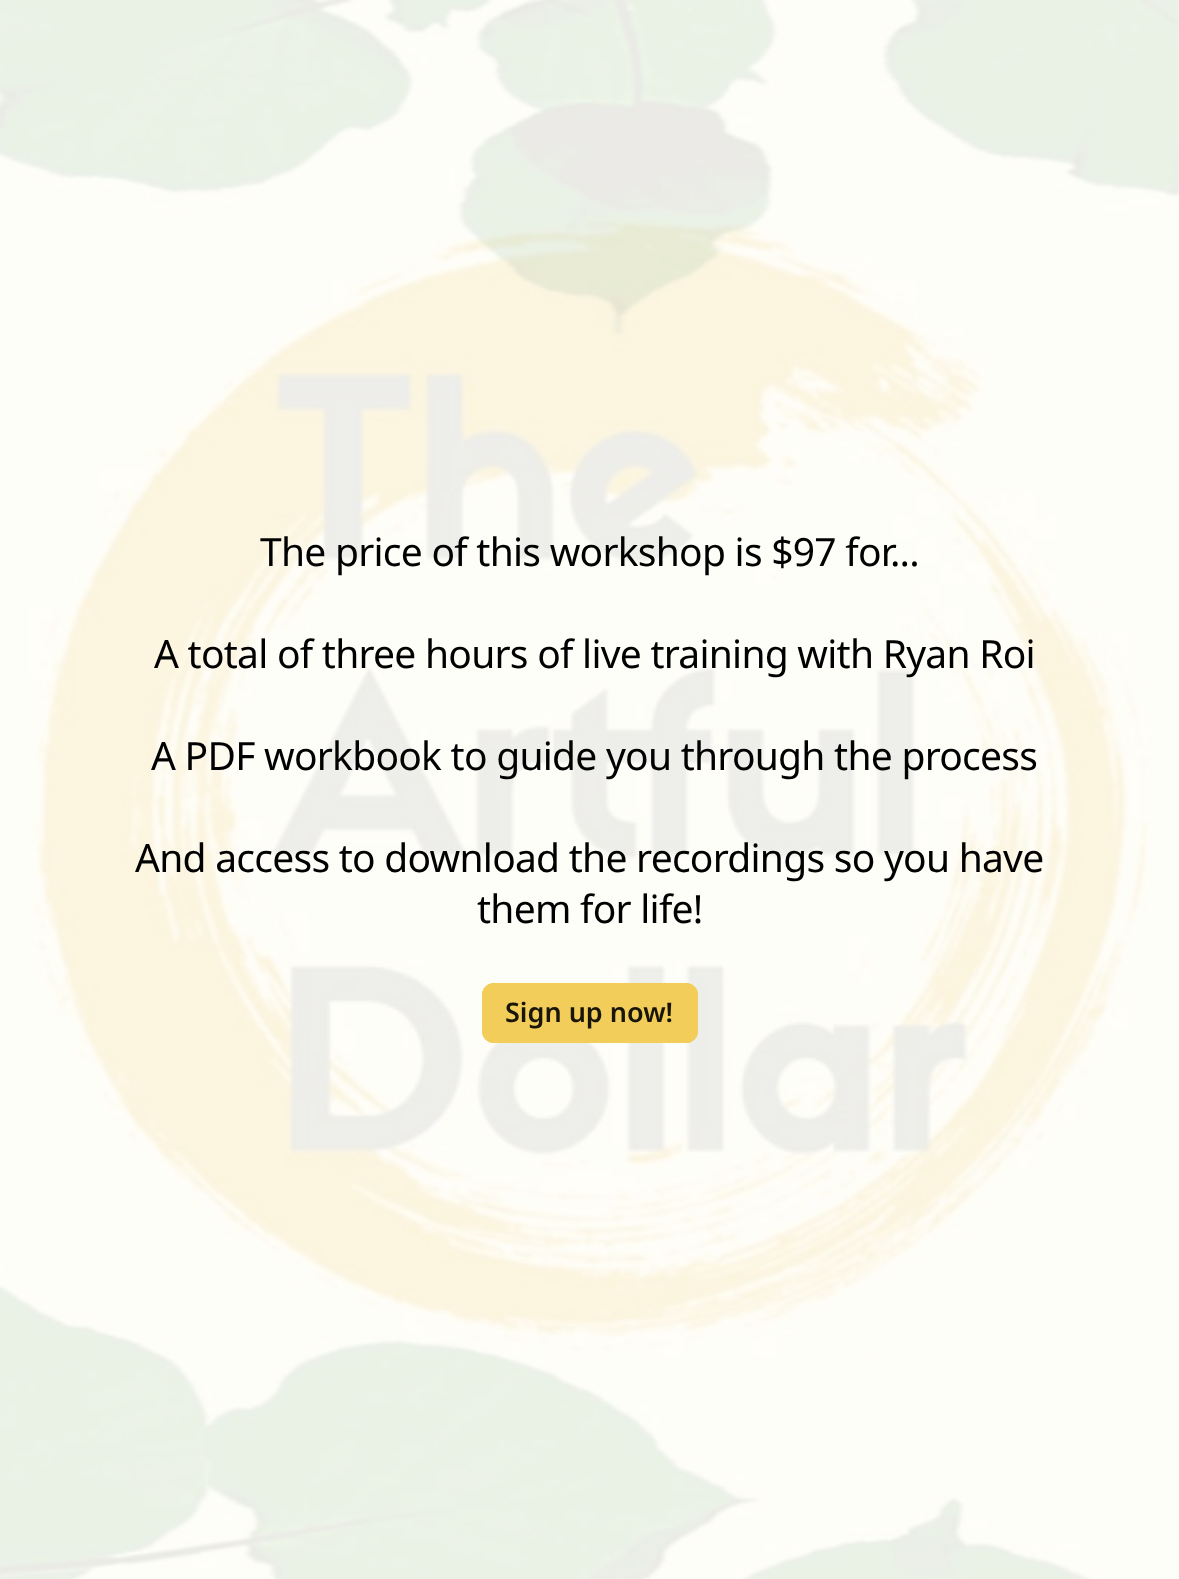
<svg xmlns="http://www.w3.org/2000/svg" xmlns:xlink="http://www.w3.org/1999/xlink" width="1179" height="1579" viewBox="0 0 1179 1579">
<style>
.cls-1{font:39px Noto Sans;letter-spacing:-0.75px;fill:#000000}
.cls-2{font:600 27px Noto Sans;fill:#181509}
</style>
<rect width="100%" height="100%" fill="#ffffff"/>
<image xlink:href="image0.png" x="0" y="0" width="1179" height="1579"/>
<rect fill="none" stroke="#f3cd59" stroke-width="2" x="483" y="984" width="214" height="58" rx="11"/>
<rect fill="#f3cd59" filter="blur(0.5px)" x="482" y="983" width="216" height="60" rx="12"/>
<text class="cls-1" x="260" y="566">The price of this workshop is $97 for...</text>
<text class="cls-1" x="154" y="668">A total of three hours of live training with Ryan Roi</text>
<text class="cls-1" x="151" y="770">A PDF workbook to guide you through the process</text>
<text class="cls-1" x="135" y="872">And access to download the recordings so you have</text>
<text class="cls-1" x="477" y="923">them for life!</text>
<text class="cls-2" x="505" y="1022">Sign up now!</text>
</svg>
